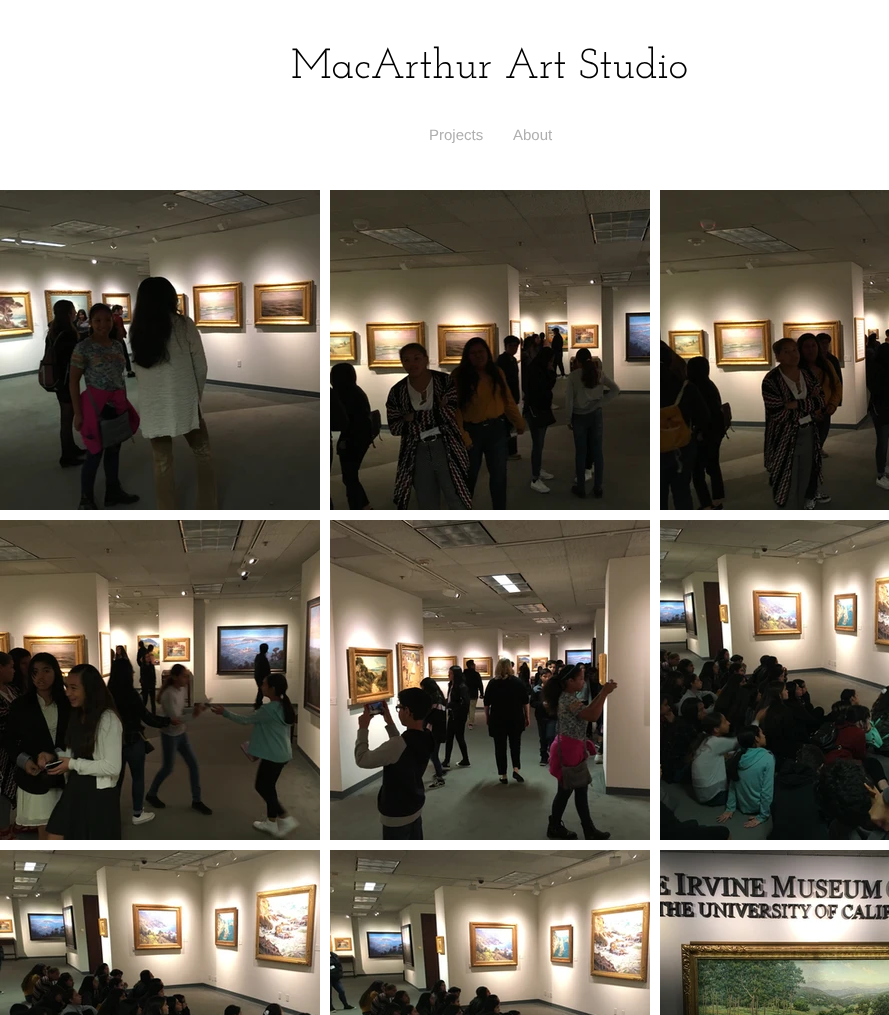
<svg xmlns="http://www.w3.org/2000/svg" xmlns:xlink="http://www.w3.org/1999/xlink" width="889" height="1015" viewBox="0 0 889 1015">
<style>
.cls-1{font:42px Josefin Slab;fill:#000000}
.cls-2{font:15px Liberation Sans;fill:#afafaf}
</style>
<rect width="100%" height="100%" fill="#ffffff"/>
<image xlink:href="image0.png" x="0" y="190" width="320" height="320"/>
<image xlink:href="image1.png" x="330" y="190" width="320" height="320"/>
<image xlink:href="image2.png" x="660" y="190" width="229" height="320"/>
<image xlink:href="image3.png" x="0" y="520" width="320" height="320"/>
<image xlink:href="image4.png" x="330" y="520" width="320" height="320"/>
<image xlink:href="image5.png" x="660" y="520" width="229" height="320"/>
<image xlink:href="image6.png" x="0" y="850" width="320" height="165"/>
<image xlink:href="image7.png" x="330" y="850" width="320" height="165"/>
<image xlink:href="image8.png" x="660" y="850" width="229" height="165"/>
<text class="cls-1" x="291" y="78">MacArthur Art Studio</text>
<text class="cls-2" x="429" y="140">Projects</text>
<text class="cls-2" x="513" y="140">About</text>
</svg>
